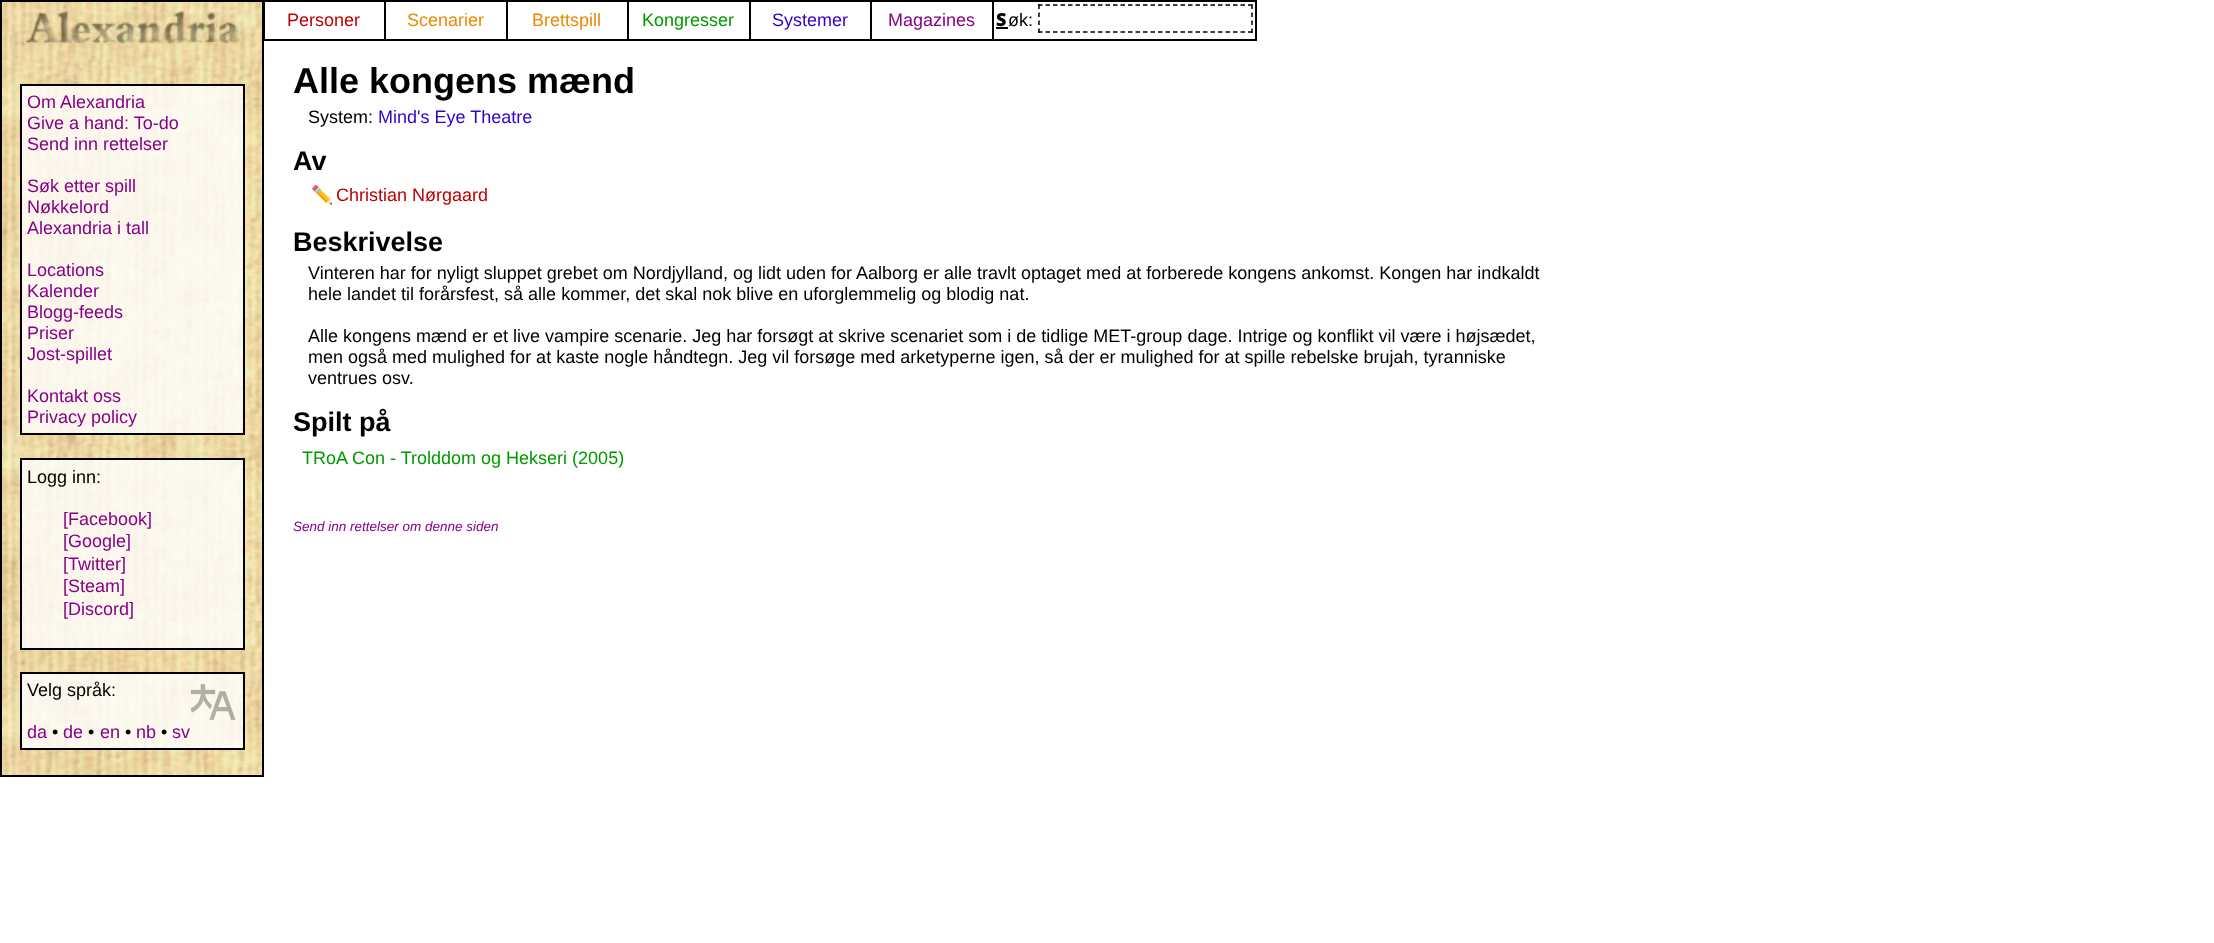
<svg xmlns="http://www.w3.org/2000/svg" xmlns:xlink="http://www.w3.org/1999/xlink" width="2214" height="943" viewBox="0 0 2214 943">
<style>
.cls-1{font:18px Liberation Sans;fill:#bb0000}
.cls-2{font:18px Liberation Sans;fill:#ee8800}
.cls-3{font:18px Liberation Sans;fill:#009900}
.cls-4{font:18px Liberation Sans;fill:#3300cc}
.cls-5{font:18px Liberation Sans;fill:#880088}
.cls-6{font:900 18px Noto Sans;fill:#000000}
.cls-7{font:18px Liberation Sans;fill:#000000}
.cls-8{font:bold 36px Liberation Sans;fill:#000000}
.cls-9{font:bold 27px Liberation Sans;fill:#000000}
.cls-10{font:18px Noto Color Emoji;fill:#000000}
.cls-11{font:italic 13.5px Liberation Sans;fill:#880088}
</style>
<rect width="100%" height="100%" fill="#ffffff"/>
<image xlink:href="image0.png" x="2" y="2" width="260" height="773"/>
<rect fill="none" stroke="#000000" stroke-width="2" x="1" y="1" width="262" height="775"/>
<rect fill="none" stroke="#000000" stroke-width="2" x="264" y="1" width="992" height="39"/>
<rect fill="#000000" x="384" y="2" width="2" height="37"/>
<rect fill="#000000" x="506" y="2" width="2" height="37"/>
<rect fill="#000000" x="627" y="2" width="2" height="37"/>
<rect fill="#000000" x="749" y="2" width="2" height="37"/>
<rect fill="#000000" x="870" y="2" width="2" height="37"/>
<rect fill="#000000" x="992" y="2" width="2" height="37"/>
<rect fill="#000000" x="996" y="27" width="12" height="2"/>
<path fill="none" stroke="#000000" stroke-width="1.5" stroke-dasharray="4.5 3" d="M1038 5H1252.5"/>
<path fill="none" stroke="#000000" stroke-width="1.5" stroke-dasharray="4.5 3.5" d="M1252 4.5V33"/>
<path fill="none" stroke="#000000" stroke-width="1.5" stroke-dasharray="4.5 3" d="M1038 32H1252.5"/>
<path fill="none" stroke="#000000" stroke-width="1.5" stroke-dasharray="4.5 3.5" d="M1039 4.5V33"/>
<image xlink:href="image1.png" x="23" y="10" width="223" height="38"/>
<rect fill="#ffffff" fill-opacity="0.8" stroke="#000000" stroke-width="2" x="21" y="85" width="223" height="349"/>
<rect fill="#ffffff" fill-opacity="0.8" stroke="#000000" stroke-width="2" x="21" y="459" width="223" height="190"/>
<rect fill="#ffffff" fill-opacity="0.8" stroke="#000000" stroke-width="2" x="21" y="673" width="223" height="76"/>
<image xlink:href="image2.png" x="191" y="684" width="45" height="36"/>
<text class="cls-1" x="287" y="26">Personer</text>
<text class="cls-2" x="407" y="26">Scenarier</text>
<text class="cls-2" x="532" y="26">Brettspill</text>
<text class="cls-3" x="642" y="26">Kongresser</text>
<text class="cls-4" x="772" y="26">Systemer</text>
<text class="cls-5" x="888" y="26">Magazines</text>
<text class="cls-6" x="996" y="26">S</text>
<text class="cls-7" x="1008" y="26">øk:</text>
<text class="cls-5"><tspan x="27" y="108">Om Alexandria</tspan><tspan x="27" y="129">Give a hand: To-do</tspan><tspan x="27" y="150">Send inn rettelser</tspan></text>
<text class="cls-5"><tspan x="27" y="192">Søk etter spill</tspan><tspan x="27" y="213">Nøkkelord</tspan><tspan x="27" y="234">Alexandria i tall</tspan></text>
<text class="cls-5"><tspan x="27" y="276">Locations</tspan><tspan x="27" y="297">Kalender</tspan><tspan x="27" y="318">Blogg-feeds</tspan><tspan x="27" y="339">Priser</tspan><tspan x="27" y="360">Jost-spillet</tspan></text>
<text class="cls-5"><tspan x="27" y="402">Kontakt oss</tspan><tspan x="27" y="423">Privacy policy</tspan></text>
<text class="cls-7" x="27" y="483">Logg inn:</text>
<text class="cls-5"><tspan x="63" y="525">[Facebook]</tspan><tspan x="63" y="547">[Google]</tspan><tspan x="63" y="570">[Twitter]</tspan><tspan x="63" y="592">[Steam]</tspan><tspan x="63" y="615">[Discord]</tspan></text>
<text class="cls-7" x="27" y="696">Velg språk:</text>
<text class="cls-5" x="27" y="738">da</text>
<text class="cls-7" x="52" y="738">•</text>
<text class="cls-5" x="63" y="738">de</text>
<text class="cls-7" x="88" y="738">•</text>
<text class="cls-5" x="100" y="738">en</text>
<text class="cls-7" x="125" y="738">•</text>
<text class="cls-5" x="136" y="738">nb</text>
<text class="cls-7" x="161" y="738">•</text>
<text class="cls-5" x="172" y="738">sv</text>
<text class="cls-8" x="293" y="93">Alle kongens mænd</text>
<text class="cls-7" x="308" y="123">System:</text>
<text class="cls-4" x="378" y="123">Mind's Eye Theatre</text>
<text class="cls-9" x="293" y="170">Av</text>
<text class="cls-10" x="311" y="201">✏️</text>
<text class="cls-1" x="336" y="201">Christian Nørgaard</text>
<text class="cls-9" x="293" y="251">Beskrivelse</text>
<text class="cls-7"><tspan x="308" y="279">Vinteren har for nyligt sluppet grebet om Nordjylland, og lidt uden for Aalborg er alle travlt optaget med at forberede kongens ankomst. Kongen har indkaldt</tspan><tspan x="308" y="300">hele landet til forårsfest, så alle kommer, det skal nok blive en uforglemmelig og blodig nat.</tspan></text>
<text class="cls-7"><tspan x="308" y="342">Alle kongens mænd er et live vampire scenarie. Jeg har forsøgt at skrive scenariet som i de tidlige MET-group dage. Intrige og konflikt vil være i højsædet,</tspan><tspan x="308" y="363">men også med mulighed for at kaste nogle håndtegn. Jeg vil forsøge med arketyperne igen, så der er mulighed for at spille rebelske brujah, tyranniske</tspan><tspan x="308" y="384">ventrues osv.</tspan></text>
<text class="cls-9" x="293" y="431">Spilt på</text>
<text class="cls-3" x="302" y="464">TRoA Con - Trolddom og Hekseri (2005)</text>
<text class="cls-11" x="293" y="531">Send inn rettelser om denne siden</text>
</svg>
